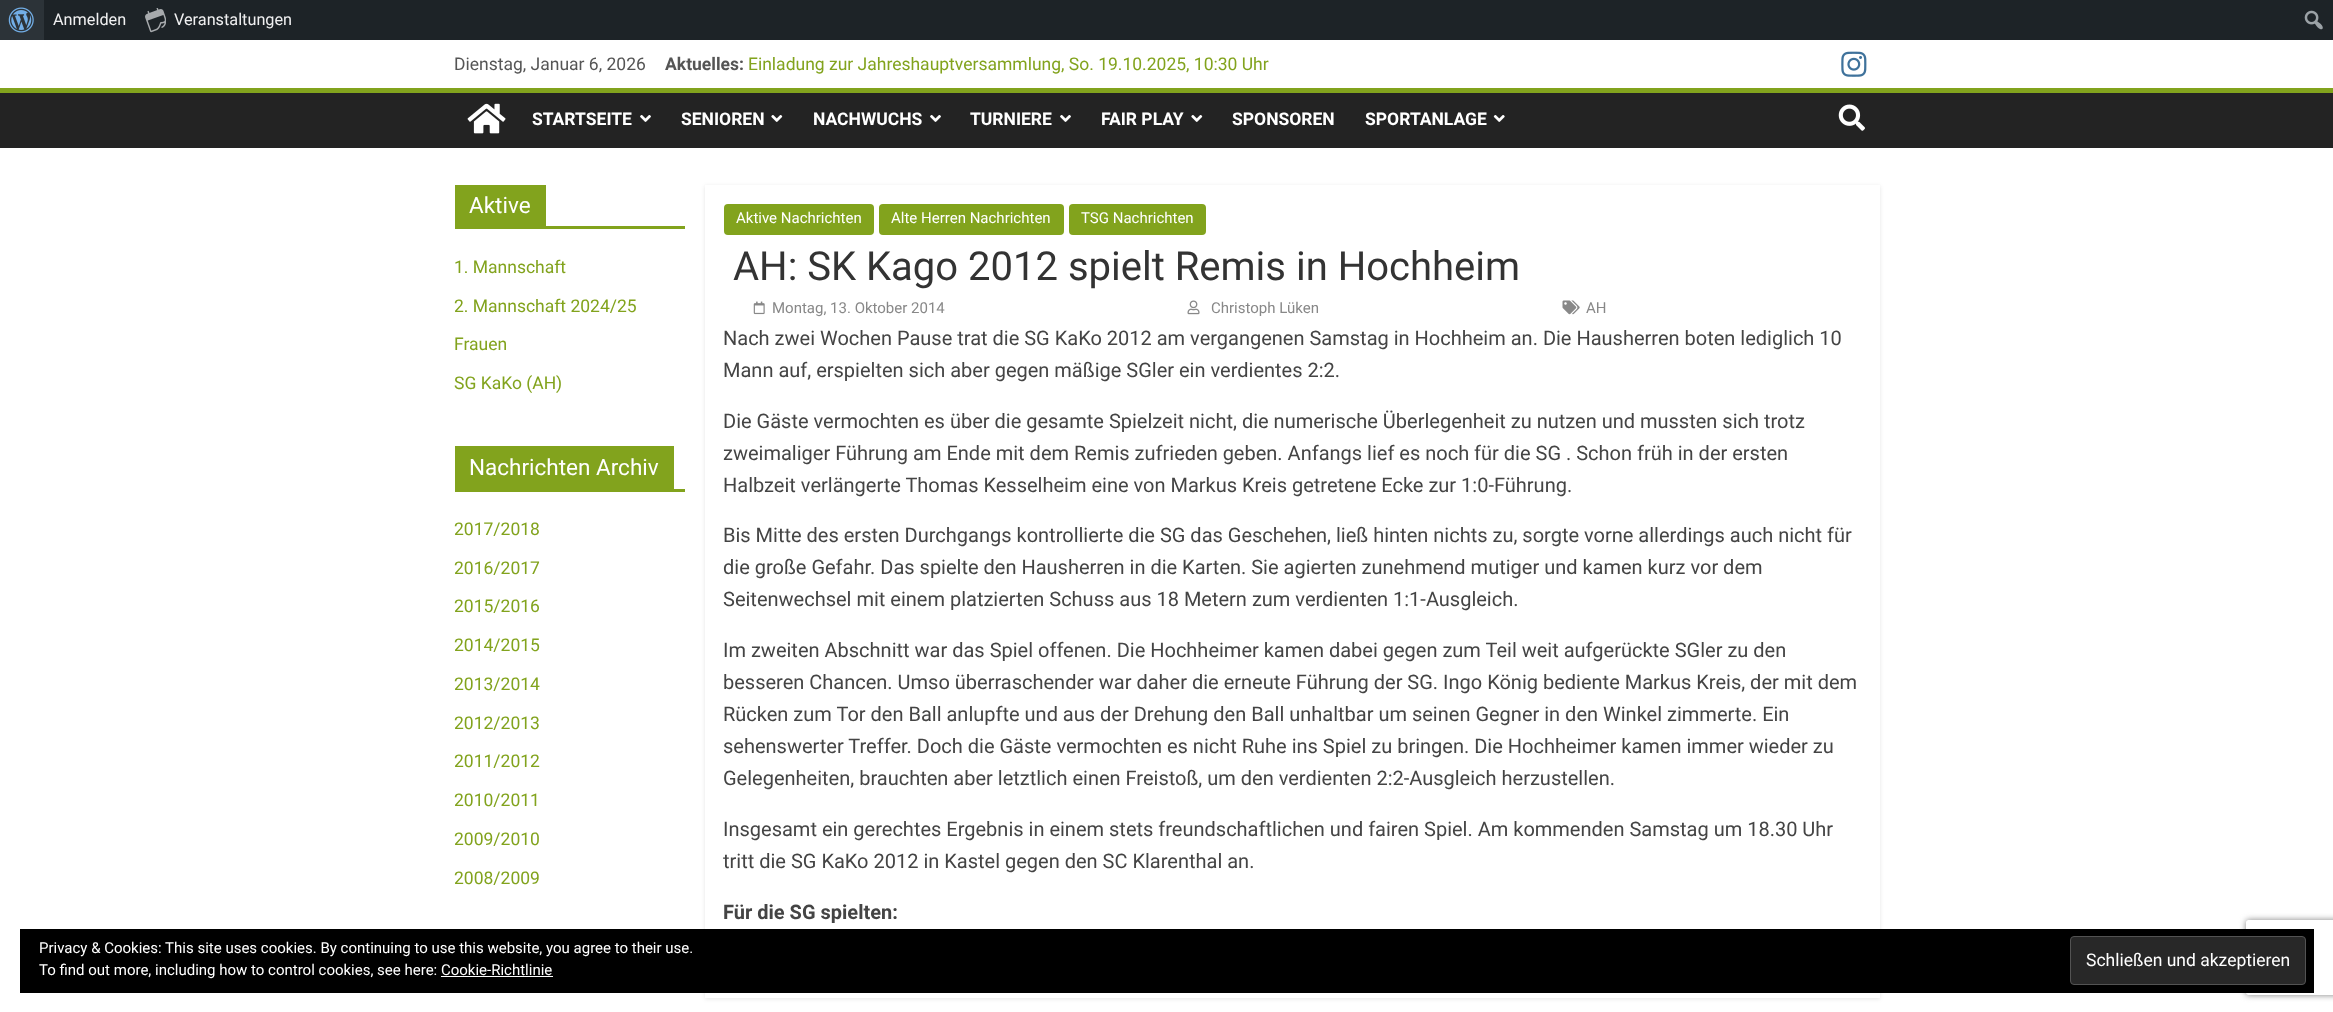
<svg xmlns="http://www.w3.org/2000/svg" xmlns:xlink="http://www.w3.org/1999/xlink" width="2333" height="1012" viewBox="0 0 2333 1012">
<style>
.cls-1{font:16.25px Roboto;fill:#f0f0f1}
.cls-2{font:17.5px Roboto;fill:#555555}
.cls-3{font:bold 17.5px Roboto;fill:#555555}
.cls-4{font:17.5px Roboto;fill:#82a31d}
.cls-5{font:bold 17.5px Roboto;fill:#ffffff}
.cls-6{font:22.5px Roboto;fill:#ffffff}
.cls-7{font:15px Roboto;fill:#ffffff}
.cls-8{font:40px Roboto;fill:#333333}
.cls-9{font:15px Roboto;fill:#888888}
.cls-10{font:20px Roboto;fill:#444444}
.cls-11{font:bold 20px Roboto;fill:#444444}
.cls-12{font:17.5px Roboto;fill:#ffffff}
</style>
<defs>
<clipPath id="clip1"><path d="M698 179H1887V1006H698ZM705 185H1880V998H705Z" clip-rule="evenodd"/></clipPath>
<clipPath id="clip2"><path d="M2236 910H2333V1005H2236ZM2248.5 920H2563.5C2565 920 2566 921 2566 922.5V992.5C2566 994 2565 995 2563.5 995H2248.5C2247 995 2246 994 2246 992.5V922.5C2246 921 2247 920 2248.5 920Z" clip-rule="evenodd"/></clipPath>
</defs>
<rect width="100%" height="100%" fill="#ffffff"/>
<rect fill="#1d2327" x="44" y="0" width="2289" height="40"/>
<rect fill="#2c3338" x="0" y="0" width="44" height="40"/>
<image xlink:href="image0.png" x="8" y="7" width="26" height="26"/>
<image xlink:href="image1.png" x="145" y="8" width="21" height="25"/>
<image xlink:href="image2.png" x="2304" y="10" width="19" height="20"/>
<image xlink:href="image3.png" x="1841" y="51" width="26" height="26"/>
<rect fill="#232323" x="0" y="93" width="2333" height="55"/>
<rect fill="#82a31d" x="0" y="88" width="2333" height="5"/>
<image xlink:href="image4.png" x="467" y="103" width="39" height="31"/>
<image xlink:href="image5.png" x="640" y="115" width="11" height="7"/>
<image xlink:href="image6.png" x="771" y="115" width="12" height="7"/>
<image xlink:href="image5.png" x="930" y="115" width="11" height="7"/>
<image xlink:href="image5.png" x="1060" y="115" width="11" height="7"/>
<image xlink:href="image6.png" x="1191" y="115" width="12" height="7"/>
<image xlink:href="image7.png" x="1493" y="115" width="12" height="7"/>
<image xlink:href="image8.png" x="1838" y="104" width="27" height="27"/>
<rect fill="#82a31d" x="455" y="226" width="230" height="3"/>
<rect fill="#82a31d" x="455" y="185" width="91" height="41"/>
<rect fill="#82a31d" x="455" y="489" width="230" height="3"/>
<rect fill="#82a31d" x="455" y="446" width="219" height="43"/>
<g clip-path="url(#clip1)">
<rect fill="#000000" fill-opacity="0.1" filter="blur(2px)" x="705" y="186" width="1175" height="813"/>
</g>
<rect fill="#82a31d" x="724" y="204" width="150" height="31" rx="4"/>
<rect fill="#82a31d" x="879" y="204" width="185" height="31" rx="4"/>
<rect fill="#82a31d" x="1069" y="204" width="137" height="31" rx="4"/>
<image xlink:href="image9.png" x="753" y="301" width="12" height="14"/>
<image xlink:href="image10.png" x="1187" y="300" width="13" height="15"/>
<image xlink:href="image11.png" x="1562" y="300" width="18" height="15"/>
<g clip-path="url(#clip2)">
<rect fill="#808080" filter="blur(3px)" x="2246" y="920" width="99" height="75" rx="2.5"/>
</g>
<rect fill="#000000" x="20" y="929" width="2294" height="64"/>
<rect fill="#282828" stroke="#535353" x="2070.5" y="936.5" width="235" height="48" rx="3.5"/>
<rect fill="#ffffff" x="441" y="976" width="112" height="1"/>
<text class="cls-1" x="53" y="25">Anmelden</text>
<text class="cls-1" x="174" y="25">Veranstaltungen</text>
<text class="cls-2" x="454" y="70">Dienstag, Januar 6, 2026</text>
<text class="cls-3" x="665" y="70">Aktuelles:</text>
<text class="cls-4" x="748" y="70">Einladung zur Jahreshauptversammlung, So. 19.10.2025, 10:30 Uhr</text>
<text class="cls-5" x="532" y="125">STARTSEITE</text>
<text class="cls-5" x="681" y="125">SENIOREN</text>
<text class="cls-5" x="813" y="125">NACHWUCHS</text>
<text class="cls-5" x="970" y="125">TURNIERE</text>
<text class="cls-5" x="1101" y="125">FAIR PLAY</text>
<text class="cls-5" x="1232" y="125">SPONSOREN</text>
<text class="cls-5" x="1365" y="125">SPORTANLAGE</text>
<text class="cls-6" x="469" y="213">Aktive</text>
<text class="cls-4" x="454" y="273">1. Mannschaft</text>
<text class="cls-4" x="454" y="312">2. Mannschaft 2024/25</text>
<text class="cls-4" x="454" y="350">Frauen</text>
<text class="cls-4" x="454" y="389">SG KaKo (AH)</text>
<text class="cls-6" x="469" y="475">Nachrichten Archiv</text>
<text class="cls-4" x="454" y="535">2017/2018</text>
<text class="cls-4" x="454" y="574">2016/2017</text>
<text class="cls-4" x="454" y="612">2015/2016</text>
<text class="cls-4" x="454" y="651">2014/2015</text>
<text class="cls-4" x="454" y="690">2013/2014</text>
<text class="cls-4" x="454" y="729">2012/2013</text>
<text class="cls-4" x="454" y="767">2011/2012</text>
<text class="cls-4" x="454" y="806">2010/2011</text>
<text class="cls-4" x="454" y="845">2009/2010</text>
<text class="cls-4" x="454" y="884">2008/2009</text>
<text class="cls-7" x="736" y="223">Aktive Nachrichten</text>
<text class="cls-7" x="891" y="223">Alte Herren Nachrichten</text>
<text class="cls-7" x="1081" y="223">TSG Nachrichten</text>
<text class="cls-8" x="733" y="280">AH: SK Kago 2012 spielt Remis in Hochheim</text>
<text class="cls-9" x="772" y="313">Montag, 13. Oktober 2014</text>
<text class="cls-9" x="1211" y="313">Christoph Lüken</text>
<text class="cls-9" x="1586" y="313">AH</text>
<text class="cls-10"><tspan x="723" y="345">Nach zwei Wochen Pause trat die SG KaKo 2012 am vergangenen Samstag in Hochheim an. Die Hausherren boten lediglich 10</tspan><tspan x="723" y="377">Mann auf, erspielten sich aber gegen mäßige SGler ein verdientes 2:2.</tspan></text>
<text class="cls-10"><tspan x="723" y="428">Die Gäste vermochten es über die gesamte Spielzeit nicht, die numerische Überlegenheit zu nutzen und mussten sich trotz</tspan><tspan x="723" y="460">zweimaliger Führung am Ende mit dem Remis zufrieden geben. Anfangs lief es noch für die SG . Schon früh in der ersten</tspan><tspan x="723" y="492">Halbzeit verlängerte Thomas Kesselheim eine von Markus Kreis getretene Ecke zur 1:0-Führung.</tspan></text>
<text class="cls-10"><tspan x="723" y="542">Bis Mitte des ersten Durchgangs kontrollierte die SG das Geschehen, ließ hinten nichts zu, sorgte vorne allerdings auch nicht für</tspan><tspan x="723" y="574">die große Gefahr. Das spielte den Hausherren in die Karten. Sie agierten zunehmend mutiger und kamen kurz vor dem</tspan><tspan x="723" y="606">Seitenwechsel mit einem platzierten Schuss aus 18 Metern zum verdienten 1:1-Ausgleich.</tspan></text>
<text class="cls-10"><tspan x="723" y="657">Im zweiten Abschnitt war das Spiel offenen. Die Hochheimer kamen dabei gegen zum Teil weit aufgerückte SGler zu den</tspan><tspan x="723" y="689">besseren Chancen. Umso überraschender war daher die erneute Führung der SG. Ingo König bediente Markus Kreis, der mit dem</tspan><tspan x="723" y="721">Rücken zum Tor den Ball anlupfte und aus der Drehung den Ball unhaltbar um seinen Gegner in den Winkel zimmerte. Ein</tspan><tspan x="723" y="753">sehenswerter Treffer. Doch die Gäste vermochten es nicht Ruhe ins Spiel zu bringen. Die Hochheimer kamen immer wieder zu</tspan><tspan x="723" y="785">Gelegenheiten, brauchten aber letztlich einen Freistoß, um den verdienten 2:2-Ausgleich herzustellen.</tspan></text>
<text class="cls-10"><tspan x="723" y="836">Insgesamt ein gerechtes Ergebnis in einem stets freundschaftlichen und fairen Spiel. Am kommenden Samstag um 18.30 Uhr</tspan><tspan x="723" y="868">tritt die SG KaKo 2012 in Kastel gegen den SC Klarenthal an.</tspan></text>
<text class="cls-11" x="723" y="919">Für die SG spielten:</text>
<text class="cls-7"><tspan x="39" y="953">Privacy &amp; Cookies: This site uses cookies. By continuing to use this website, you agree to their use.</tspan><tspan x="39" y="975">To find out more, including how to control cookies, see here: Cookie-Richtlinie</tspan></text>
<text class="cls-12" x="2086" y="966">Schließen und akzeptieren</text>
</svg>
